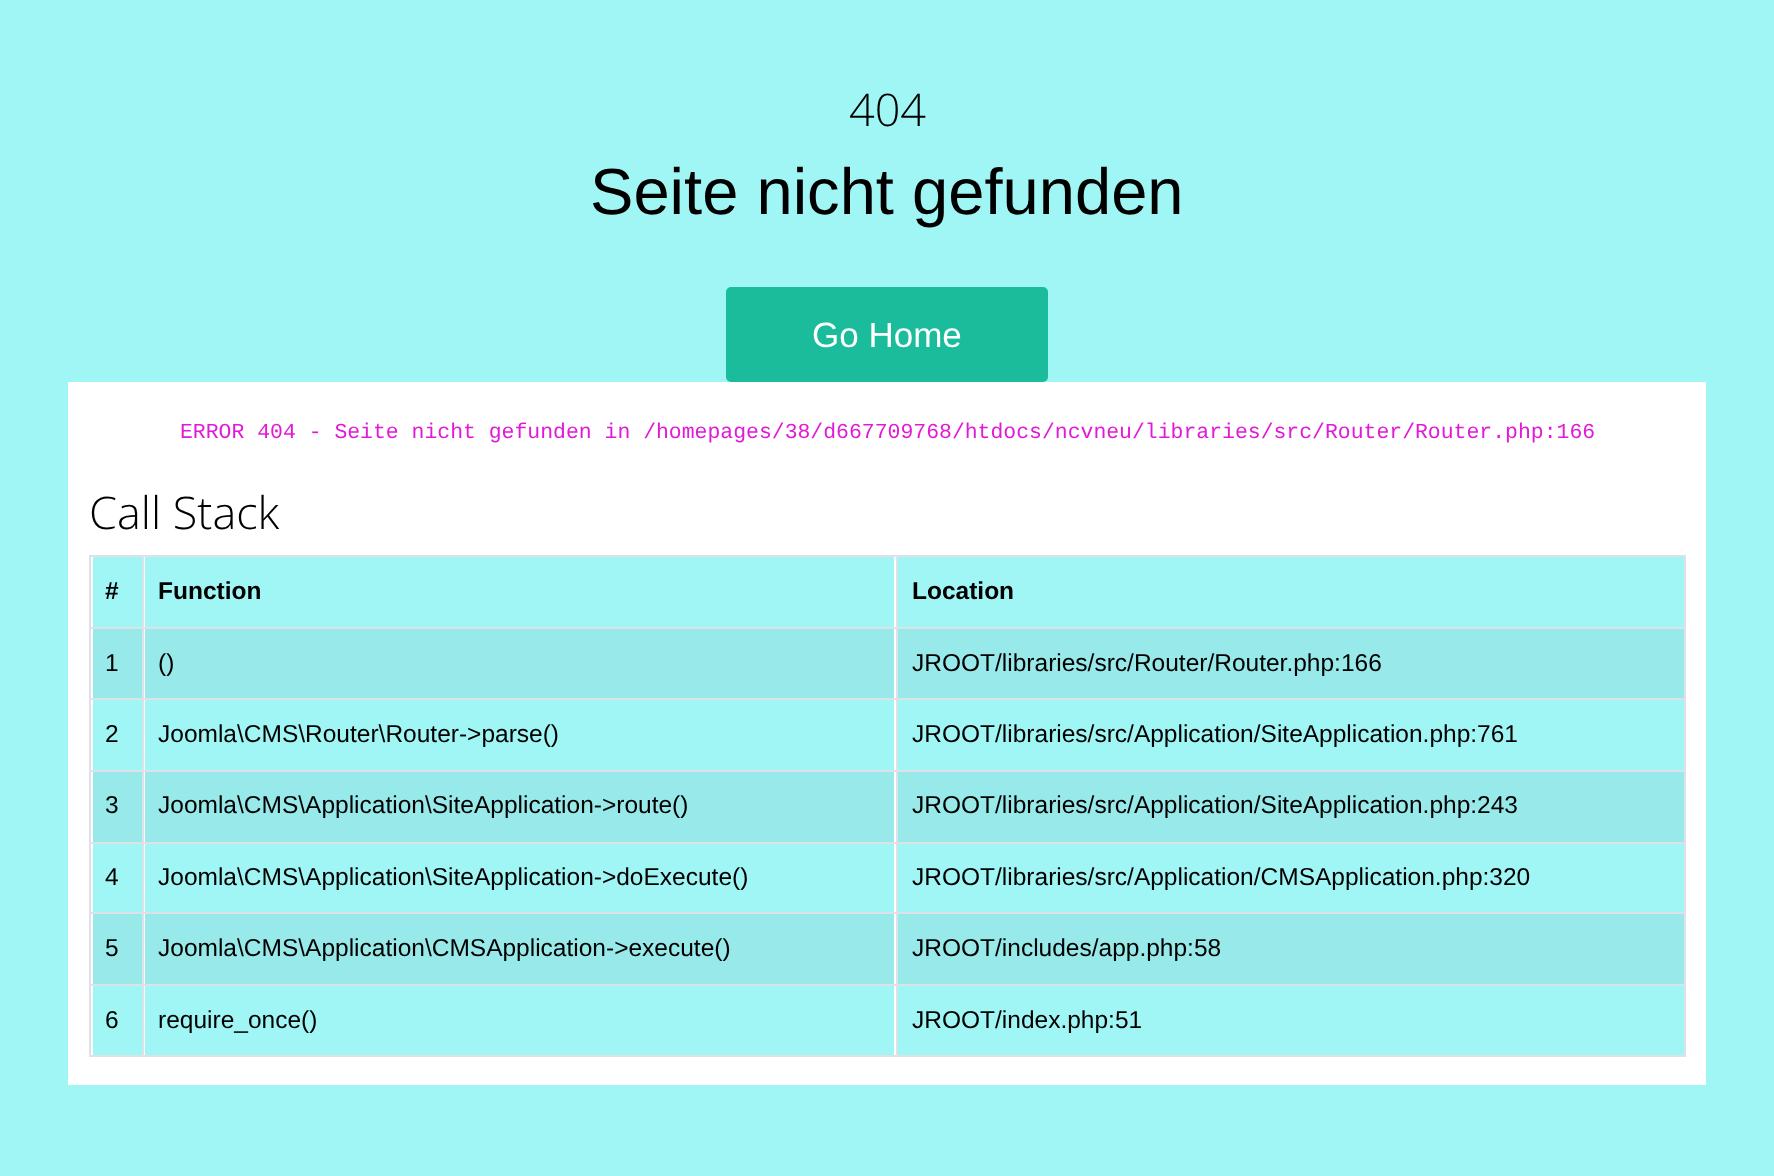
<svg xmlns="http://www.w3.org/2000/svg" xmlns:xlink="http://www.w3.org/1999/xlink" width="1774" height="1176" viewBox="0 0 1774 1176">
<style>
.cls-1{font:300 45px Open Sans;fill:#000000}
.cls-2{font:65.1px Liberation Sans;fill:#000000}
.cls-3{font:35px Liberation Sans;fill:#ffffff}
.cls-4{font:21.45px Liberation Mono;fill:#e01ad7}
.cls-5{font:bold 24.5px Liberation Sans;fill:#000000}
.cls-6{font:24.5px Liberation Sans;fill:#000000}
</style>
<rect width="100%" height="100%" fill="#a0f5f5"/>
<rect fill="#1abc9c" stroke="#1abc9c" stroke-width="2" x="727" y="288" width="320" height="93" rx="4"/>
<rect fill="#ffffff" x="68" y="382" width="1638" height="703"/>
<rect fill="#dee2e6" x="89" y="555" width="1596" height="2"/>
<rect fill="#a0f5f5" x="93" y="557" width="49" height="70"/>
<rect fill="#a0f5f5" x="145" y="557" width="749" height="70"/>
<rect fill="#a0f5f5" x="898" y="557" width="786" height="70"/>
<rect fill="#dee2e6" x="89" y="627" width="1596" height="2"/>
<rect fill="#98e9e9" x="93" y="629" width="49" height="69"/>
<rect fill="#98e9e9" x="145" y="629" width="749" height="69"/>
<rect fill="#98e9e9" x="898" y="629" width="786" height="69"/>
<rect fill="#dee2e6" x="89" y="698" width="1596" height="2"/>
<rect fill="#a0f5f5" x="93" y="700" width="49" height="70"/>
<rect fill="#a0f5f5" x="145" y="700" width="749" height="70"/>
<rect fill="#a0f5f5" x="898" y="700" width="786" height="70"/>
<rect fill="#dee2e6" x="89" y="770" width="1596" height="2"/>
<rect fill="#98e9e9" x="93" y="772" width="49" height="70"/>
<rect fill="#98e9e9" x="145" y="772" width="749" height="70"/>
<rect fill="#98e9e9" x="898" y="772" width="786" height="70"/>
<rect fill="#dee2e6" x="89" y="842" width="1596" height="2"/>
<rect fill="#a0f5f5" x="93" y="844" width="49" height="68"/>
<rect fill="#a0f5f5" x="145" y="844" width="749" height="68"/>
<rect fill="#a0f5f5" x="898" y="844" width="786" height="68"/>
<rect fill="#dee2e6" x="89" y="912" width="1596" height="2"/>
<rect fill="#98e9e9" x="93" y="914" width="49" height="70"/>
<rect fill="#98e9e9" x="145" y="914" width="749" height="70"/>
<rect fill="#98e9e9" x="898" y="914" width="786" height="70"/>
<rect fill="#dee2e6" x="89" y="984" width="1596" height="2"/>
<rect fill="#dee2e6" x="89" y="1055" width="1596" height="2"/>
<rect fill="#a0f5f5" x="93" y="986" width="49" height="69"/>
<rect fill="#dee2e6" x="89" y="555" width="2" height="502"/>
<rect fill="#a0f5f5" x="145" y="986" width="749" height="69"/>
<rect fill="#dee2e6" x="142" y="555" width="2" height="502"/>
<rect fill="#a0f5f5" x="898" y="986" width="786" height="69"/>
<rect fill="#dee2e6" x="1684" y="555" width="2" height="502"/>
<rect fill="#dee2e6" x="896" y="555" width="2" height="502"/>
<text class="cls-1" x="849" y="126">404</text>
<text class="cls-2" x="590" y="214">Seite nicht gefunden</text>
<text class="cls-3" x="812" y="347">Go Home</text>
<text class="cls-4" x="180" y="438">ERROR 404 - Seite nicht gefunden in /homepages/38/d667709768/htdocs/ncvneu/libraries/src/Router/Router.php:166</text>
<text class="cls-1" x="89" y="529">Call Stack</text>
<text class="cls-5" x="105" y="599">#</text>
<text class="cls-5" x="158" y="599">Function</text>
<text class="cls-5" x="912" y="599">Location</text>
<text class="cls-6" x="105" y="671">1</text>
<text class="cls-6" x="158" y="671">()</text>
<text class="cls-6" x="912" y="671">JROOT/libraries/src/Router/Router.php:166</text>
<text class="cls-6" x="105" y="742">2</text>
<text class="cls-6" x="158" y="742">Joomla\CMS\Router\Router-&gt;parse()</text>
<text class="cls-6" x="912" y="742">JROOT/libraries/src/Application/SiteApplication.php:761</text>
<text class="cls-6" x="105" y="813">3</text>
<text class="cls-6" x="158" y="813">Joomla\CMS\Application\SiteApplication-&gt;route()</text>
<text class="cls-6" x="912" y="813">JROOT/libraries/src/Application/SiteApplication.php:243</text>
<text class="cls-6" x="105" y="885">4</text>
<text class="cls-6" x="158" y="885">Joomla\CMS\Application\SiteApplication-&gt;doExecute()</text>
<text class="cls-6" x="912" y="885">JROOT/libraries/src/Application/CMSApplication.php:320</text>
<text class="cls-6" x="105" y="956">5</text>
<text class="cls-6" x="158" y="956">Joomla\CMS\Application\CMSApplication-&gt;execute()</text>
<text class="cls-6" x="912" y="956">JROOT/includes/app.php:58</text>
<text class="cls-6" x="105" y="1028">6</text>
<text class="cls-6" x="158" y="1028">require_once()</text>
<text class="cls-6" x="912" y="1028">JROOT/index.php:51</text>
</svg>
